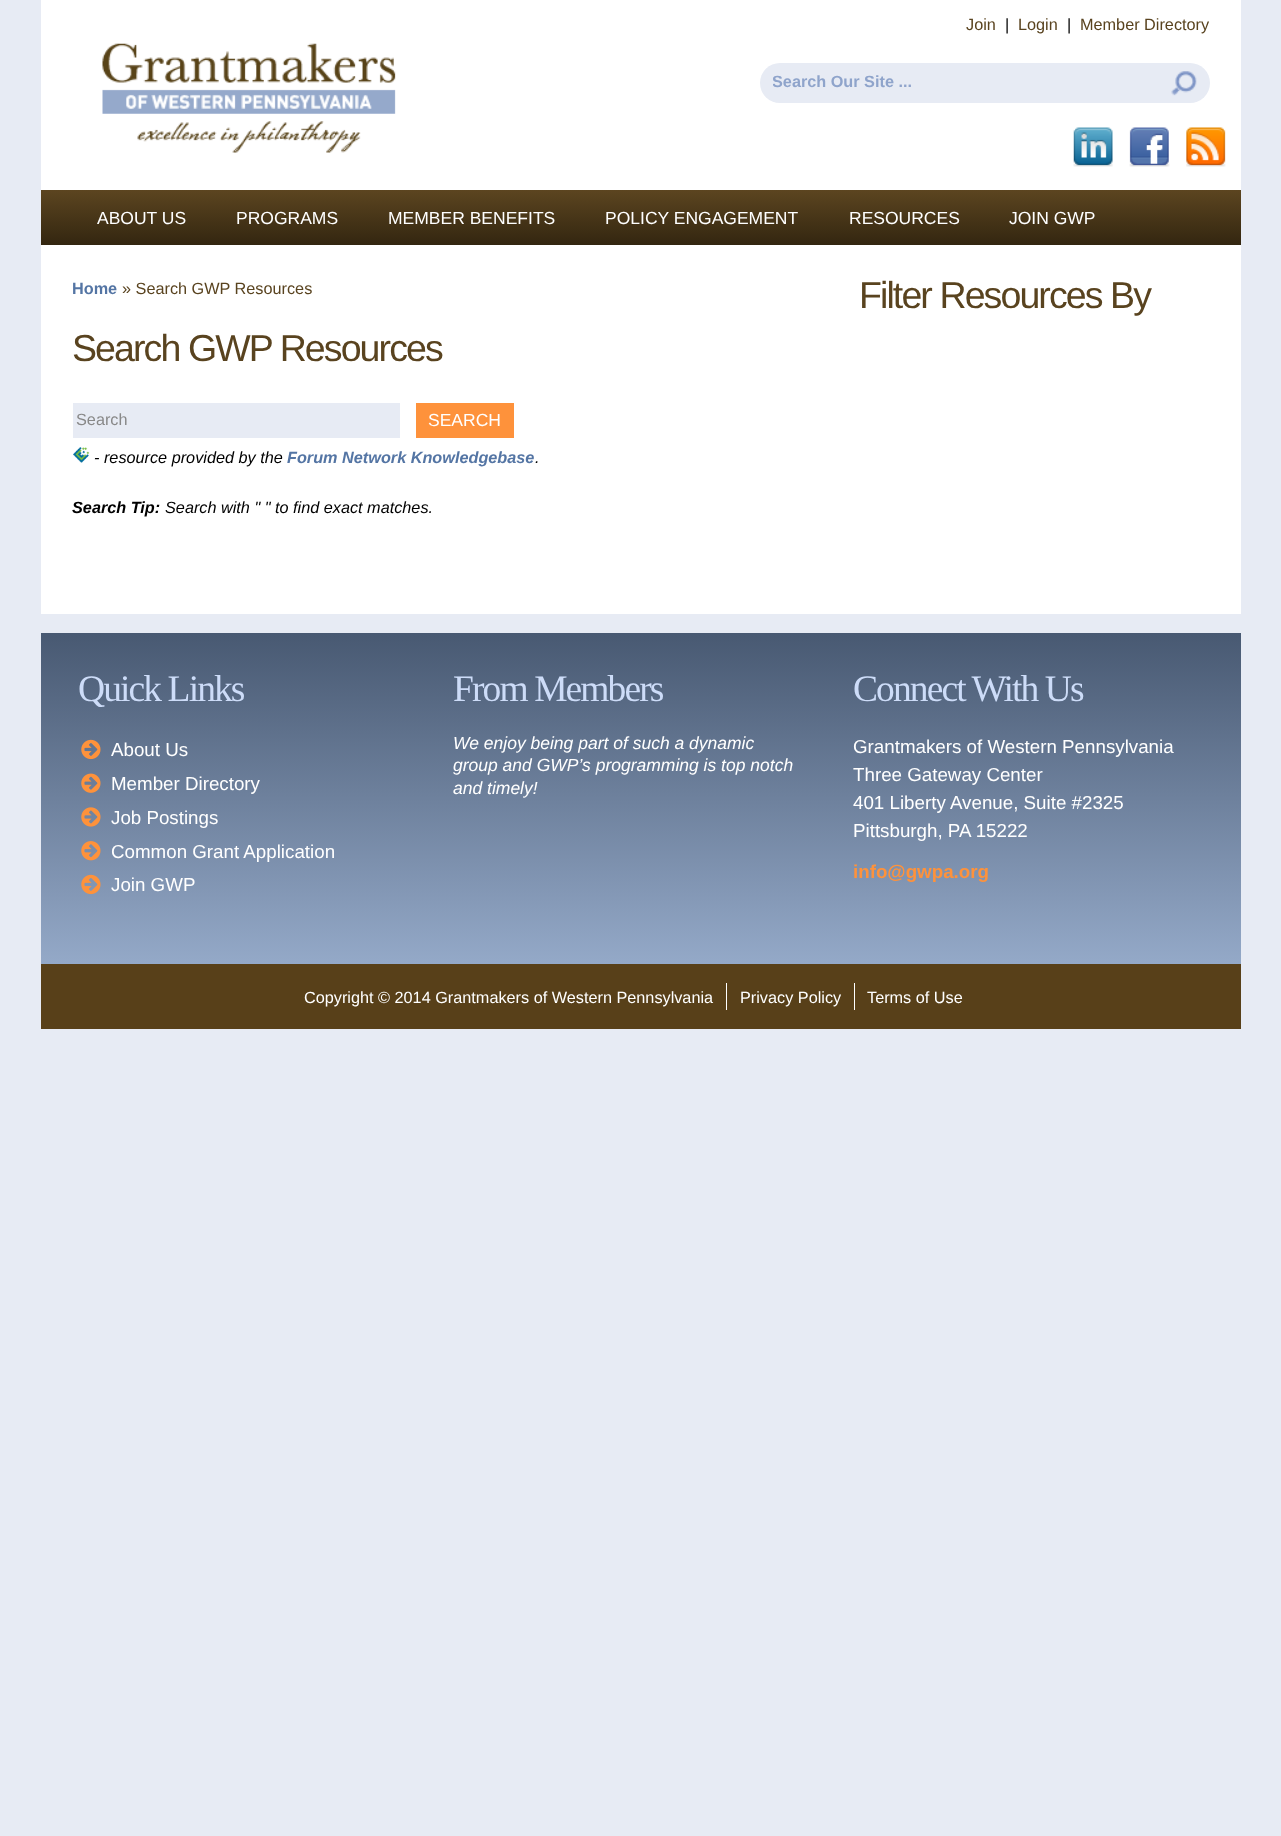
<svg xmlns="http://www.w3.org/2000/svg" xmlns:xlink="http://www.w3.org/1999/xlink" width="1281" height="1836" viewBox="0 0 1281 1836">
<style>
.cls-1{font:16.25px Liberation Sans;fill:#59431f}
.cls-2{font:16.25px Liberation Sans;fill:#000000}
.cls-3{font:bold 16.25px Liberation Sans;fill:#8fa4cb}
.cls-4{font:17.5px Liberation Sans;fill:#ffffff}
.cls-5{font:bold 16.25px Liberation Sans;fill:#5475a4}
.cls-6{font:37.5px Liberation Sans;letter-spacing:-1.9px;fill:#59431f}
.cls-7{font:16.25px Liberation Sans;fill:#888888}
.cls-8{font:italic 16.25px Liberation Sans;fill:#000000}
.cls-9{font:italic bold 16.25px Liberation Sans;fill:#5475a4}
.cls-10{font:italic bold 16.25px Liberation Sans;fill:#000000}
.cls-11{font:37.5px Liberation Serif;letter-spacing:-1.9px;fill:#cddcf8}
.cls-12{font:18.75px Liberation Sans;fill:#ffffff}
.cls-13{font:italic 17.5px Liberation Sans;fill:#ffffff}
.cls-14{font:bold 18.75px Liberation Sans;fill:#fe923b}
.cls-15{font:16.25px Liberation Sans;fill:#ffffff}
</style>
<defs>
<linearGradient id="g1" gradientUnits="userSpaceOnUse" x1="41" y1="245" x2="41" y2="190"><stop offset="0" stop-color="#332610"/><stop offset="1" stop-color="#5c4520"/></linearGradient>
<linearGradient id="g2" gradientUnits="userSpaceOnUse" x1="41" y1="964" x2="41" y2="633"><stop offset="0" stop-color="#94a9c8"/><stop offset="1" stop-color="#485972"/></linearGradient>
<clipPath id="clip1"><rect x="773" y="63" width="390" height="40"/></clipPath>
</defs>
<rect width="100%" height="100%" fill="#e7ebf4"/>
<rect fill="#ffffff" x="41" y="0" width="1200" height="190"/>
<image xlink:href="image0.png" x="102" y="43" width="294" height="110"/>
<rect fill="#e7ebf4" x="760" y="63" width="450" height="40" rx="20"/>
<image xlink:href="image1.png" x="1171" y="71" width="26" height="25"/>
<image xlink:href="image2.png" x="1073" y="127" width="40" height="40"/>
<image xlink:href="image3.png" x="1129" y="127" width="41" height="40"/>
<image xlink:href="image4.png" x="1186" y="127" width="40" height="40"/>
<rect fill="url(#g1)" x="41" y="190" width="1200" height="55"/>
<rect fill="#ffffff" x="41" y="245" width="1200" height="369"/>
<rect fill="#e7ebf4" x="73" y="403" width="327" height="35"/>
<rect fill="#fe923b" x="416" y="403" width="98" height="35"/>
<image xlink:href="image5.png" x="73" y="447" width="17" height="16"/>
<rect fill="url(#g2)" x="41" y="633" width="1200" height="331"/>
<image xlink:href="image6.png" x="81" y="739" width="20" height="21"/>
<image xlink:href="image7.png" x="81" y="773" width="20" height="20"/>
<image xlink:href="image8.png" x="81" y="807" width="20" height="20"/>
<image xlink:href="image9.png" x="81" y="841" width="20" height="20"/>
<image xlink:href="image10.png" x="81" y="874" width="20" height="21"/>
<rect fill="#584019" x="41" y="964" width="1200" height="65"/>
<rect fill="#ffffff" x="726" y="983" width="1" height="27"/>
<rect fill="#ffffff" x="854" y="983" width="1" height="27"/>
<text class="cls-1" x="966" y="30">Join</text>
<text class="cls-2" x="1005" y="30">|</text>
<text class="cls-1" x="1018" y="30">Login</text>
<text class="cls-2" x="1067" y="30">|</text>
<text class="cls-1" x="1080" y="30">Member Directory</text>
<g clip-path="url(#clip1)">
<text class="cls-3" x="772" y="87">Search Our Site ...</text>
</g>
<text class="cls-4" x="97" y="224">ABOUT US</text>
<text class="cls-4" x="236" y="224">PROGRAMS</text>
<text class="cls-4" x="388" y="224">MEMBER BENEFITS</text>
<text class="cls-4" x="605" y="224">POLICY ENGAGEMENT</text>
<text class="cls-4" x="849" y="224">RESOURCES</text>
<text class="cls-4" x="1009" y="224">JOIN GWP</text>
<text class="cls-5" x="72" y="294">Home</text>
<text class="cls-1" x="122" y="294">» Search GWP Resources</text>
<text class="cls-6" x="72" y="361">Search GWP Resources</text>
<text class="cls-7" x="76" y="425">Search</text>
<text class="cls-4" x="428" y="426">SEARCH</text>
<text class="cls-8" x="94" y="463">- resource provided by the</text>
<text class="cls-9" x="287" y="463">Forum Network Knowledgebase</text>
<text class="cls-8" x="535" y="463">.</text>
<text class="cls-10" x="72" y="513">Search Tip:</text>
<text class="cls-8" x="165" y="513">Search with " " to find exact matches.</text>
<text class="cls-6" x="859" y="308">Filter Resources By</text>
<text class="cls-11" x="78" y="701">Quick Links</text>
<text class="cls-12"><tspan x="111" y="756">About Us</tspan><tspan x="111" y="790">Member Directory</tspan><tspan x="111" y="824">Job Postings</tspan><tspan x="111" y="858">Common Grant Application</tspan><tspan x="111" y="891">Join GWP</tspan></text>
<text class="cls-11" x="453" y="701">From Members</text>
<text class="cls-13"><tspan x="453" y="749">We enjoy being part of such a dynamic</tspan><tspan x="453" y="771">group and GWP’s programming is top notch</tspan><tspan x="453" y="794">and timely!</tspan></text>
<text class="cls-11" x="853" y="701">Connect With Us</text>
<text class="cls-12"><tspan x="853" y="753">Grantmakers of Western Pennsylvania</tspan><tspan x="853" y="781">Three Gateway Center</tspan><tspan x="853" y="809">401 Liberty Avenue, Suite #2325</tspan><tspan x="853" y="837">Pittsburgh, PA 15222</tspan></text>
<text class="cls-14" x="853" y="878">info@gwpa.org</text>
<text class="cls-15" x="304" y="1003">Copyright © 2014 Grantmakers of Western Pennsylvania</text>
<text class="cls-15" x="740" y="1003">Privacy Policy</text>
<text class="cls-15" x="867" y="1003">Terms of Use</text>
</svg>
